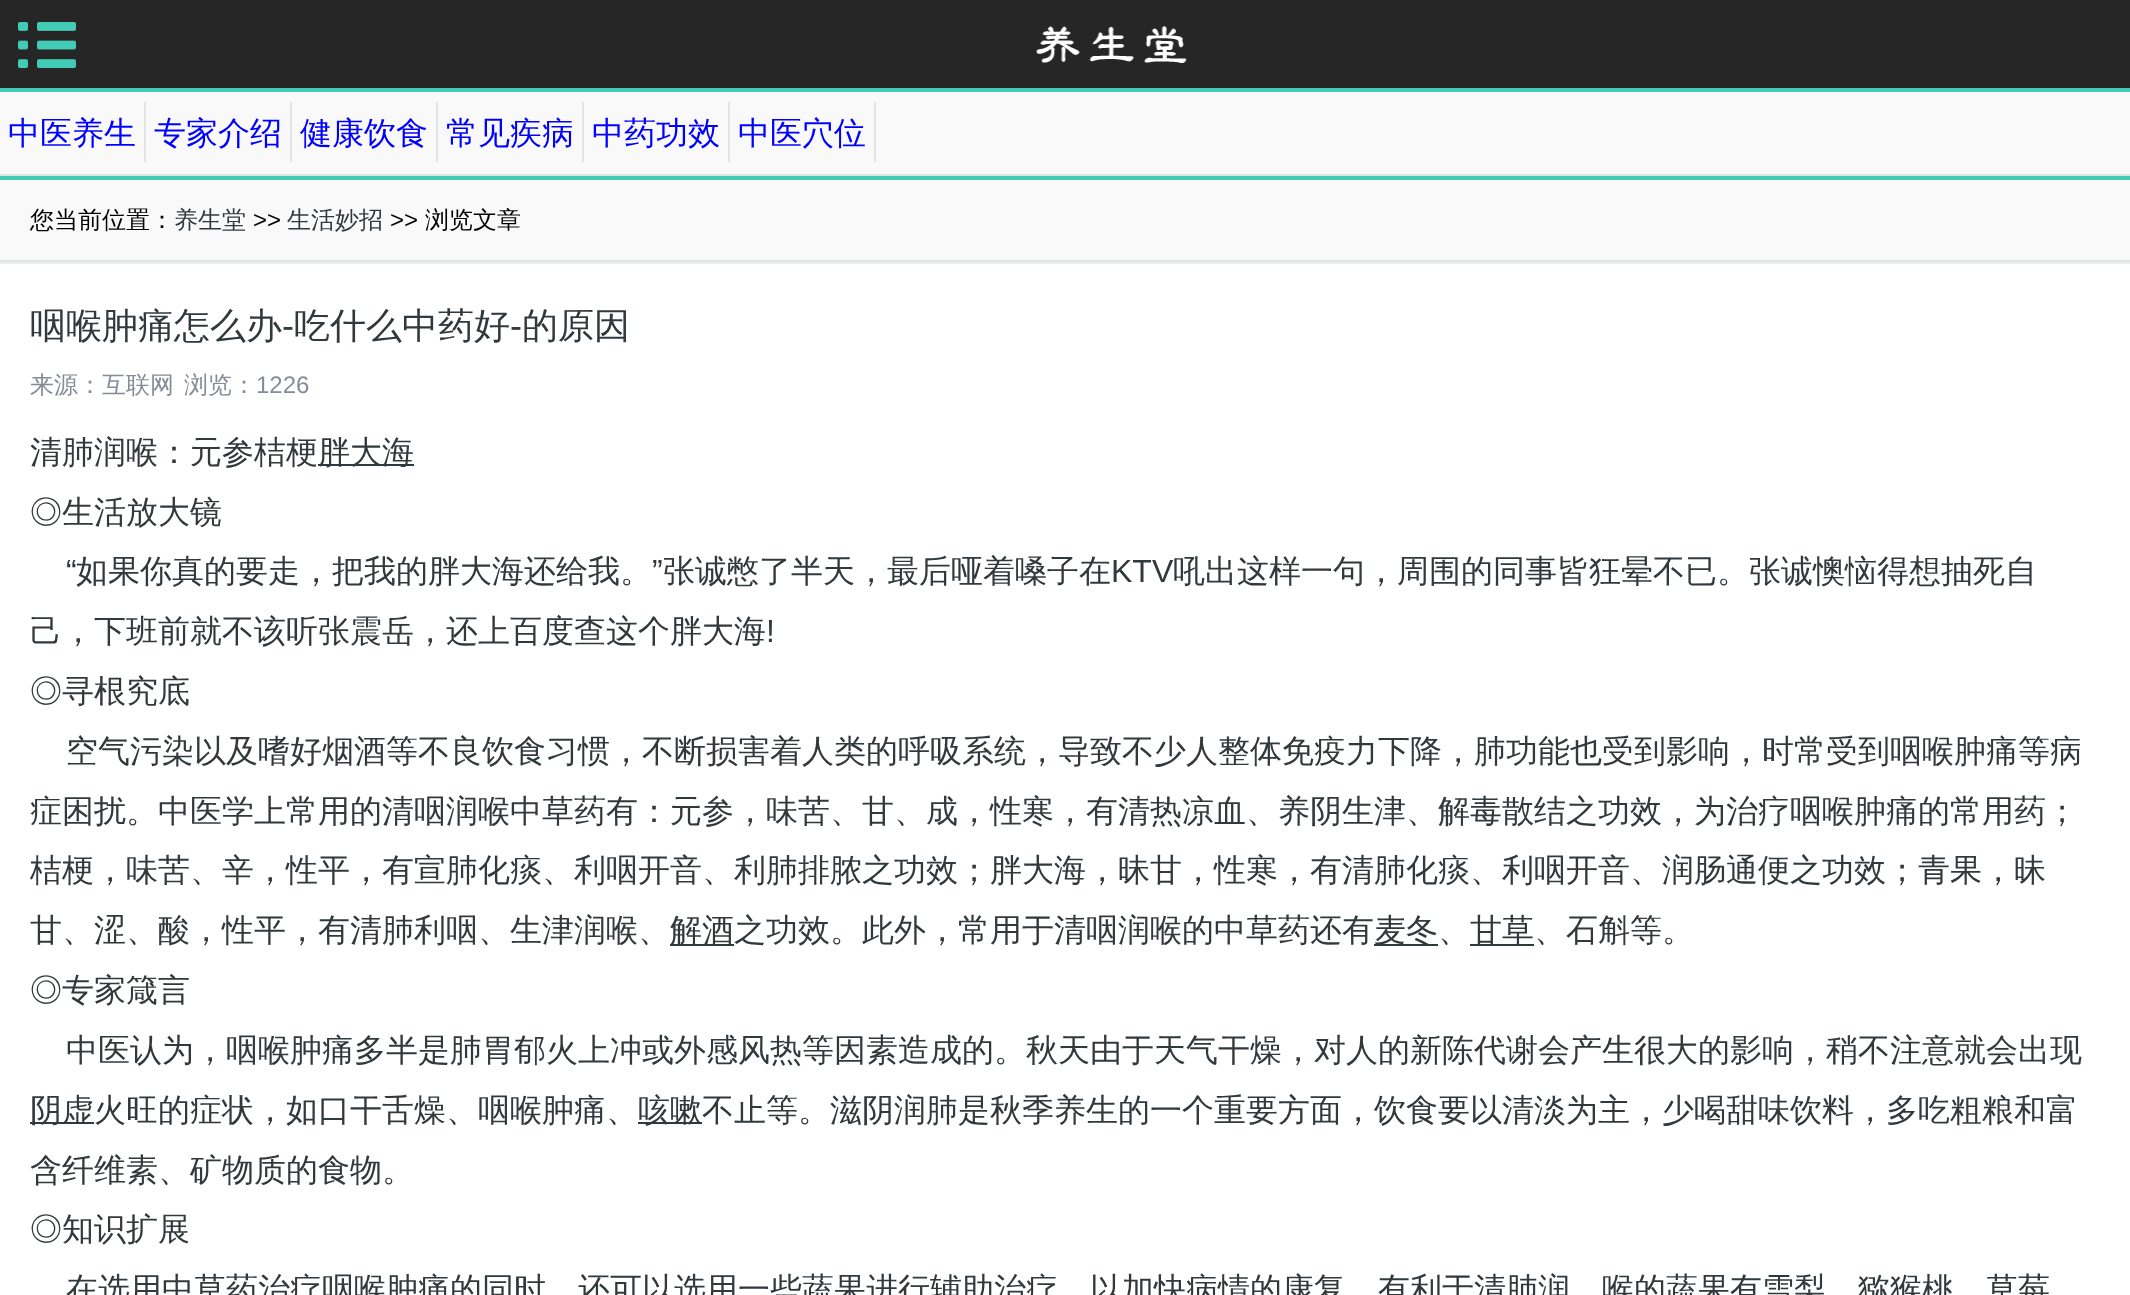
<svg xmlns="http://www.w3.org/2000/svg" xmlns:xlink="http://www.w3.org/1999/xlink" width="2130" height="1295" viewBox="0 0 2130 1295">
<style>
.cls-1{font:500 32px WenQuanYi Zen Hei;fill:#0000ff}
.cls-2{font:500 24px WenQuanYi Zen Hei;fill:#000000}
.cls-3{font:500 24px WenQuanYi Zen Hei;fill:#32393d}
.cls-4{font:24px Liberation Sans;fill:#000000}
.cls-5{font:500 36px WenQuanYi Zen Hei;fill:#32393d}
.cls-6{font:36px Liberation Sans;fill:#32393d}
.cls-7{font:500 24px WenQuanYi Zen Hei;fill:#868b98}
.cls-8{font:24px Liberation Sans;fill:#868b98}
.cls-9{font:500 32px WenQuanYi Zen Hei;fill:#32393d}
.cls-10{font:32px Liberation Sans;fill:#32393d}
</style>
<rect width="100%" height="100%" fill="#ffffff"/>
<rect fill="#262626" x="0" y="0" width="2130" height="88"/>
<rect fill="#43ccb5" x="0" y="88" width="2130" height="4"/>
<image xlink:href="image0.png" x="18" y="22" width="58" height="46"/>
<image xlink:href="image1.png" x="1036" y="26" width="151" height="37"/>
<rect fill="#f9f9f9" x="0" y="92" width="2130" height="82"/>
<rect fill="#e1e4e5" x="0" y="174" width="2130" height="2"/>
<rect fill="#e1e4e5" x="144" y="102" width="2" height="60"/>
<rect fill="#e1e4e5" x="290" y="102" width="2" height="60"/>
<rect fill="#e1e4e5" x="436" y="102" width="2" height="60"/>
<rect fill="#e1e4e5" x="582" y="102" width="2" height="60"/>
<rect fill="#e1e4e5" x="728" y="102" width="2" height="60"/>
<rect fill="#e1e4e5" x="874" y="102" width="2" height="60"/>
<rect fill="#f9f9f9" x="0" y="180" width="2130" height="80"/>
<rect fill="#43ccb5" x="0" y="176" width="2130" height="4"/>
<rect fill="#e1e4e5" x="0" y="260" width="2130" height="2"/>
<rect fill="#ebedee" x="0" y="262" width="2130" height="2"/>
<rect fill="#32393d" x="318" y="464" width="96" height="2"/>
<rect fill="#32393d" x="670" y="944" width="64" height="2"/>
<rect fill="#32393d" x="1374" y="944" width="64" height="2"/>
<rect fill="#32393d" x="1470" y="944" width="64" height="2"/>
<rect fill="#32393d" x="30" y="1122" width="64" height="2"/>
<rect fill="#32393d" x="638" y="1122" width="64" height="2"/>
<text class="cls-1" x="8" y="144">中医养生</text>
<text class="cls-1" x="154" y="144">专家介绍</text>
<text class="cls-1" x="300" y="144">健康饮食</text>
<text class="cls-1" x="446" y="144">常见疾病</text>
<text class="cls-1" x="592" y="144">中药功效</text>
<text class="cls-1" x="738" y="144">中医穴位</text>
<text class="cls-2" x="30" y="228">您当前位置：</text>
<text class="cls-3" x="174" y="228">养生堂</text>
<text class="cls-4" x="253" y="228">&gt;&gt;</text>
<text class="cls-3" x="287" y="228">生活妙招</text>
<text class="cls-4" x="390" y="228">&gt;&gt;</text>
<text class="cls-2" x="425" y="228">浏览文章</text>
<text class="cls-5" x="30" y="338">咽喉肿痛怎么办</text>
<text class="cls-6" x="282" y="338">-</text>
<text class="cls-5" x="294" y="338">吃什么中药好</text>
<text class="cls-6" x="510" y="338">-</text>
<text class="cls-5" x="522" y="338">的原因</text>
<text class="cls-7" x="30" y="393">来源：互联网</text>
<text class="cls-7" x="184" y="393">浏览：</text>
<text class="cls-8" x="256" y="393">1226</text>
<text class="cls-9" x="30" y="463">清肺润喉：元参桔梗</text>
<text class="cls-9" x="318" y="463">胖大海</text>
<text class="cls-9" x="30" y="523">◎生活放大镜</text>
<text class="cls-10" x="66" y="582">“</text>
<text class="cls-9" x="76" y="582">如果你真的要走，把我的胖大海还给我。</text>
<text class="cls-10" x="652" y="582">”</text>
<text class="cls-9" x="663" y="582">张诚憋了半天，最后哑着嗓子在</text>
<text class="cls-10" x="1111" y="582">KTV</text>
<text class="cls-9" x="1173" y="582">吼出这样一句，周围的同事皆狂晕不已。张诚懊恼得想抽死自</text>
<text class="cls-9" x="30" y="642">己，下班前就不该听张震岳，还上百度查这个胖大海</text>
<text class="cls-10" x="766" y="642">!</text>
<text class="cls-9" x="30" y="702">◎寻根究底</text>
<text class="cls-9" x="66" y="762">空气污染以及嗜好烟酒等不良饮食习惯，不断损害着人类的呼吸系统，导致不少人整体免疫力下降，肺功能也受到影响，时常受到咽喉肿痛等病</text>
<text class="cls-9"><tspan x="30" y="822">症困扰。中医学上常用的清咽润喉中草药有：元参，味苦、甘、成，性寒，有清热凉血、养阴生津、解毒散结之功效，为治疗咽喉肿痛的常用药；</tspan><tspan x="30" y="881">桔梗，味苦、辛，性平，有宣肺化痰、利咽开音、利肺排脓之功效；胖大海，昧甘，性寒，有清肺化痰、利咽开音、润肠通便之功效；青果，昧</tspan><tspan x="30" y="941">甘、涩、酸，性平，有清肺利咽、生津润喉、</tspan></text>
<text class="cls-9" x="670" y="941">解酒之功效。此外，常用于清咽润喉的中草药还有</text>
<text class="cls-9" x="1374" y="941">麦冬、</text>
<text class="cls-9" x="1470" y="941">甘草、石斛等。</text>
<text class="cls-9" x="30" y="1001">◎专家箴言</text>
<text class="cls-9" x="66" y="1061">中医认为，咽喉肿痛多半是肺胃郁火上冲或外感风热等因素造成的。秋天由于天气干燥，对人的新陈代谢会产生很大的影响，稍不注意就会出现</text>
<text class="cls-9" x="30" y="1121">阴虚火旺的症状，如口干舌燥、咽喉肿痛、</text>
<text class="cls-9" x="638" y="1121">咳嗽不止等。滋阴润肺是秋季养生的一个重要方面，饮食要以清淡为主，少喝甜味饮料，多吃粗粮和富</text>
<text class="cls-9"><tspan x="30" y="1181">含纤维素、矿物质的食物。</tspan><tspan x="30" y="1240">◎知识扩展</tspan></text>
<text class="cls-9" x="66" y="1300">在选用中草药治疗咽喉肿痛的同时，还可以选用一些蔬果进行辅助治疗，以加快病情的康复，有利于清肺润．喉的蔬果有雪梨</text>
<text class="cls-9" x="1858" y="1300">猕猴桃</text>
<text class="cls-9" x="1986" y="1300">草莓</text>
</svg>
